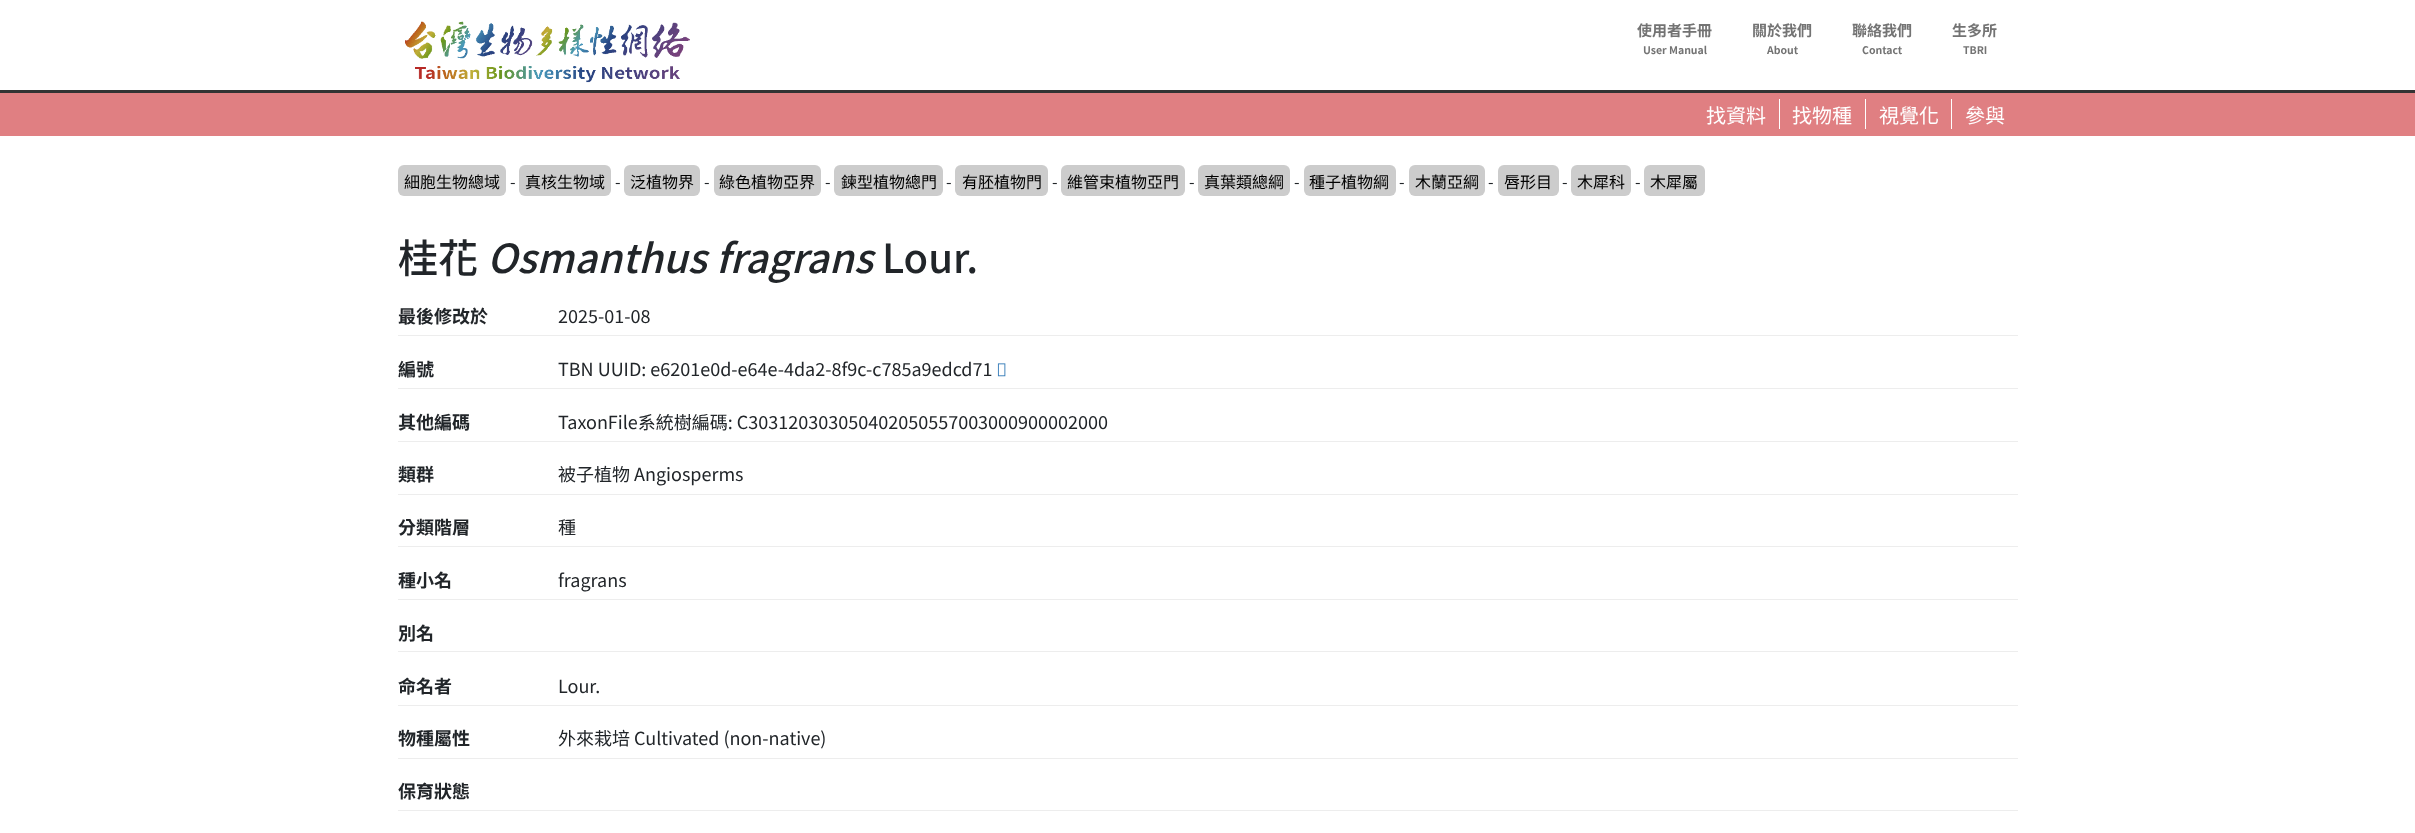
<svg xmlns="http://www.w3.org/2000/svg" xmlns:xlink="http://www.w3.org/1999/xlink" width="2415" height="833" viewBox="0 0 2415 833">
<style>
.cls-1{font:bold 15px Noto Sans TC;fill:#737373}
.cls-2{font:bold 10.5px Noto Sans TC;fill:#737373}
.cls-3{font:20px Noto Sans TC;fill:#ffffff}
.cls-4{font:16px Noto Sans TC;fill:#000000}
.cls-5{font:16px Noto Sans TC;fill:#212529}
.cls-6{font:500 40px Noto Sans TC;fill:#212529}
.cls-7{font:italic 500 40px Noto Sans TC;fill:#212529}
.cls-8{font:bold 18px Noto Sans TC;fill:#212529}
.cls-9{font:18px Noto Sans TC;fill:#212529}
</style>
<rect width="100%" height="100%" fill="#ffffff"/>
<rect fill="#333333" x="0" y="90" width="2415" height="3"/>
<image xlink:href="image0.png" x="405" y="21" width="285" height="62"/>
<rect fill="#e07f82" x="0" y="93" width="2415" height="43"/>
<rect fill="#ffffff" x="1779" y="99" width="1" height="30"/>
<rect fill="#ffffff" x="1865" y="99" width="1" height="30"/>
<rect fill="#ffffff" x="1951" y="99" width="1" height="30"/>
<rect fill="#cccccc" x="398" y="165" width="108" height="31" rx="6"/>
<rect fill="#cccccc" x="519" y="165" width="92" height="31" rx="6"/>
<rect fill="#cccccc" x="624" y="165" width="76" height="31" rx="6"/>
<rect fill="#cccccc" x="714" y="165" width="107" height="31" rx="6"/>
<rect fill="#cccccc" x="834" y="165" width="109" height="31" rx="6"/>
<rect fill="#cccccc" x="955" y="165" width="93" height="31" rx="6"/>
<rect fill="#cccccc" x="1061" y="165" width="124" height="31" rx="6"/>
<rect fill="#cccccc" x="1198" y="165" width="92" height="31" rx="6"/>
<rect fill="#cccccc" x="1304" y="165" width="92" height="31" rx="6"/>
<rect fill="#cccccc" x="1409" y="165" width="76" height="31" rx="6"/>
<rect fill="#cccccc" x="1498" y="165" width="61" height="31" rx="6"/>
<rect fill="#cccccc" x="1571" y="165" width="60" height="31" rx="6"/>
<rect fill="#cccccc" x="1644" y="165" width="61" height="31" rx="6"/>
<rect fill="#ededed" x="398" y="335" width="1620" height="1"/>
<rect fill="#ededed" x="398" y="388" width="1620" height="1"/>
<image xlink:href="image1.png" x="997" y="363" width="9" height="14"/>
<rect fill="#ededed" x="398" y="441" width="1620" height="1"/>
<rect fill="#ededed" x="398" y="494" width="1620" height="1"/>
<rect fill="#ededed" x="398" y="546" width="1620" height="1"/>
<rect fill="#ededed" x="398" y="599" width="1620" height="1"/>
<rect fill="#ededed" x="398" y="651" width="1620" height="1"/>
<rect fill="#ededed" x="398" y="705" width="1620" height="1"/>
<rect fill="#ededed" x="398" y="758" width="1620" height="1"/>
<rect fill="#ededed" x="398" y="810" width="1620" height="1"/>
<text class="cls-1" x="1637" y="36">使用者手冊</text>
<text class="cls-2" x="1643" y="54">User Manual</text>
<text class="cls-1" x="1752" y="36">關於我們</text>
<text class="cls-2" x="1767" y="54">About</text>
<text class="cls-1" x="1852" y="36">聯絡我們</text>
<text class="cls-2" x="1862" y="54">Contact</text>
<text class="cls-1" x="1952" y="36">生多所</text>
<text class="cls-2" x="1963" y="54">TBRI</text>
<text class="cls-3" x="1706" y="123">找資料</text>
<text class="cls-3" x="1792" y="123">找物種</text>
<text class="cls-3" x="1879" y="123">視覺化</text>
<text class="cls-3" x="1965" y="123">參與</text>
<text class="cls-4" x="404" y="188">細胞生物總域</text>
<text class="cls-5" x="510" y="188">-</text>
<text class="cls-4" x="525" y="188">真核生物域</text>
<text class="cls-5" x="615" y="188">-</text>
<text class="cls-4" x="630" y="188">泛植物界</text>
<text class="cls-5" x="704" y="188">-</text>
<text class="cls-4" x="719" y="188">綠色植物亞界</text>
<text class="cls-5" x="825" y="188">-</text>
<text class="cls-4" x="841" y="188">鍊型植物總門</text>
<text class="cls-5" x="946" y="188">-</text>
<text class="cls-4" x="962" y="188">有胚植物門</text>
<text class="cls-5" x="1052" y="188">-</text>
<text class="cls-4" x="1067" y="188">維管束植物亞門</text>
<text class="cls-5" x="1189" y="188">-</text>
<text class="cls-4" x="1204" y="188">真葉類總綱</text>
<text class="cls-5" x="1294" y="188">-</text>
<text class="cls-4" x="1309" y="188">種子植物綱</text>
<text class="cls-5" x="1399" y="188">-</text>
<text class="cls-4" x="1415" y="188">木蘭亞綱</text>
<text class="cls-5" x="1488" y="188">-</text>
<text class="cls-4" x="1504" y="188">唇形目</text>
<text class="cls-5" x="1562" y="188">-</text>
<text class="cls-4" x="1577" y="188">木犀科</text>
<text class="cls-5" x="1635" y="188">-</text>
<text class="cls-4" x="1650" y="188">木犀屬</text>
<text class="cls-6" x="398" y="273">桂花</text>
<text class="cls-7" x="487" y="273">Osmanthus fragrans</text>
<text class="cls-6" x="882" y="273">Lour.</text>
<text class="cls-8" x="398" y="323">最後修改於</text>
<text class="cls-9" x="558" y="323">2025-01-08</text>
<text class="cls-8" x="398" y="376">編號</text>
<text class="cls-9" x="558" y="376">TBN UUID: e6201e0d-e64e-4da2-8f9c-c785a9edcd71</text>
<text class="cls-8" x="398" y="429">其他編碼</text>
<text class="cls-9" x="558" y="429">TaxonFile系統樹編碼: C303120303050402050557003000900002000</text>
<text class="cls-8" x="398" y="481">類群</text>
<text class="cls-9" x="558" y="481">被子植物 Angiosperms</text>
<text class="cls-8" x="398" y="534">分類階層</text>
<text class="cls-9" x="558" y="534">種</text>
<text class="cls-8" x="398" y="587">種小名</text>
<text class="cls-9" x="558" y="587">fragrans</text>
<text class="cls-8" x="398" y="640">別名</text>
<text class="cls-8" x="398" y="693">命名者</text>
<text class="cls-9" x="558" y="693">Lour.</text>
<text class="cls-8" x="398" y="745">物種屬性</text>
<text class="cls-9" x="558" y="745">外來栽培 Cultivated (non-native)</text>
<text class="cls-8" x="398" y="798">保育狀態</text>
</svg>
